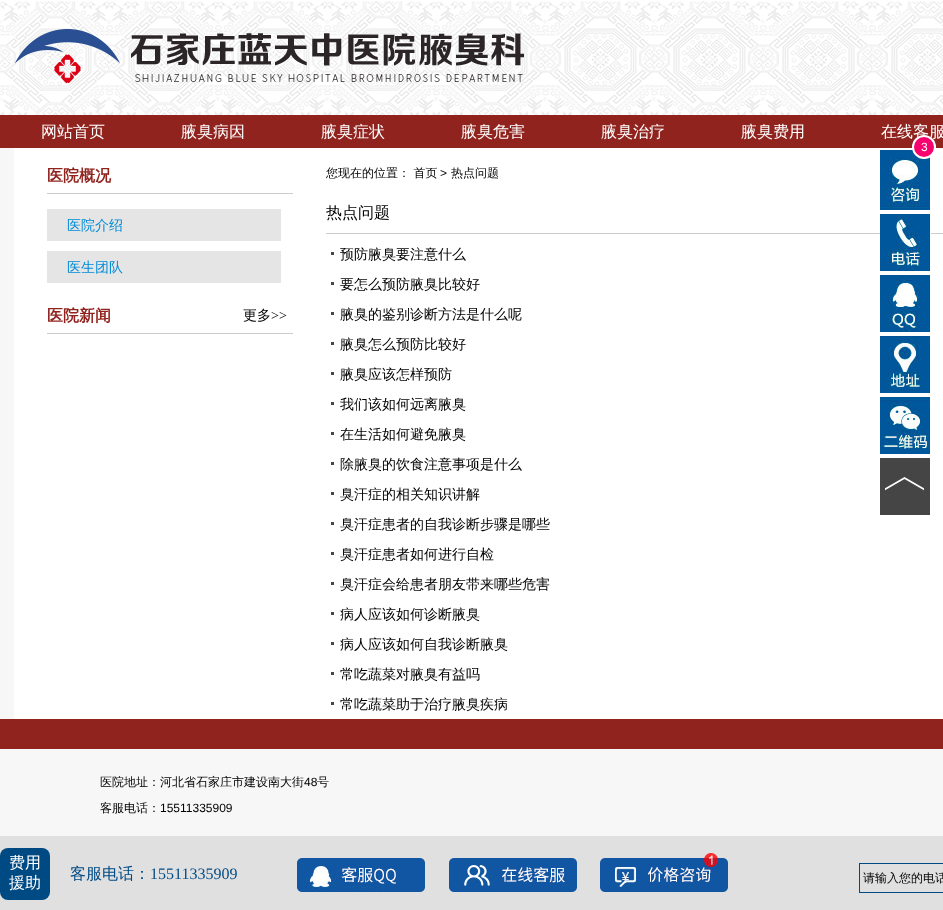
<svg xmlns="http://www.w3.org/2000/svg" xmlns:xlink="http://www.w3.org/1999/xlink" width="943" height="910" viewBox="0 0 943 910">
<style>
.cls-1{font:500 16px WenQuanYi Zen Hei;fill:#ffffff}
.cls-2{font:12px Liberation Sans;fill:#ffffff}
.cls-3{font:bold 16px WenQuanYi Zen Hei;fill:#90231e}
.cls-4{font:500 14px WenQuanYi Zen Hei;fill:#008cd6}
.cls-5{font:500 14px WenQuanYi Zen Hei;fill:#000000}
.cls-6{font:14px Liberation Serif;fill:#000000}
.cls-7{font:500 12px WenQuanYi Zen Hei;fill:#000000}
.cls-8{font:12px Liberation Sans;fill:#000000}
.cls-9{font:500 16px WenQuanYi Zen Hei;fill:#000000}
.cls-10{font:500 16px WenQuanYi Zen Hei;fill:#004a83}
.cls-11{font:16px Liberation Serif;fill:#004a83}
</style>
<rect width="100%" height="100%" fill="#f7f7f8"/>
<image xlink:href="image0.png" x="0" y="0" width="943" height="115"/>
<image xlink:href="image1.png" x="15" y="29" width="509" height="54"/>
<rect fill="#90231e" x="0" y="115" width="943" height="33"/>
<rect fill="#ffffff" x="14" y="148" width="929" height="571"/>
<image xlink:href="image2.png" x="880" y="150" width="51" height="60"/>
<rect fill="#cccccc" x="326" y="233" width="617" height="1"/>
<image xlink:href="image3.png" x="880" y="211" width="51" height="60"/>
<image xlink:href="image4.png" x="880" y="272" width="51" height="60"/>
<image xlink:href="image5.png" x="880" y="333" width="51" height="60"/>
<image xlink:href="image6.png" x="880" y="394" width="51" height="60"/>
<image xlink:href="image7.png" x="880" y="458" width="50" height="57"/>
<rect fill="#cccccc" x="47" y="193" width="246" height="1"/>
<rect fill="#e5e5e6" x="47" y="209" width="234" height="32"/>
<rect fill="#e5e5e6" x="47" y="251" width="234" height="32"/>
<rect fill="#cccccc" x="47" y="333" width="246" height="1"/>
<rect fill="#464646" x="331" y="252" width="3" height="3"/>
<rect fill="#464646" x="331" y="282" width="3" height="3"/>
<rect fill="#464646" x="331" y="312" width="3" height="3"/>
<rect fill="#464646" x="331" y="342" width="3" height="3"/>
<rect fill="#464646" x="331" y="372" width="3" height="3"/>
<rect fill="#464646" x="331" y="402" width="3" height="3"/>
<rect fill="#464646" x="331" y="432" width="3" height="3"/>
<rect fill="#464646" x="331" y="462" width="3" height="3"/>
<rect fill="#464646" x="331" y="492" width="3" height="3"/>
<rect fill="#464646" x="331" y="522" width="3" height="3"/>
<rect fill="#464646" x="331" y="552" width="3" height="3"/>
<rect fill="#464646" x="331" y="582" width="3" height="3"/>
<rect fill="#464646" x="331" y="612" width="3" height="3"/>
<rect fill="#464646" x="331" y="642" width="3" height="3"/>
<rect fill="#464646" x="331" y="672" width="3" height="3"/>
<rect fill="#464646" x="331" y="702" width="3" height="3"/>
<rect fill="#90231e" x="0" y="719" width="943" height="30"/>
<rect fill="#e1e0e1" x="0" y="836" width="943" height="74"/>
<rect fill="#004a83" x="0" y="848" width="50" height="52" rx="8"/>
<image xlink:href="image8.png" x="297" y="858" width="128" height="34"/>
<image xlink:href="image9.png" x="449" y="858" width="128" height="34"/>
<image xlink:href="image11.png" x="600" y="858" width="128" height="34"/>
<image xlink:href="image10.png" x="704" y="853" width="14" height="14"/>
<rect fill="none" stroke="#004a83" x="859.5" y="863.5" width="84" height="29"/>
<text class="cls-1" x="41" y="137">网站首页</text>
<text class="cls-1" x="181" y="137">腋臭病因</text>
<text class="cls-1" x="321" y="137">腋臭症状</text>
<text class="cls-1" x="461" y="137">腋臭危害</text>
<text class="cls-1" x="601" y="137">腋臭治疗</text>
<text class="cls-1" x="741" y="137">腋臭费用</text>
<text class="cls-1" x="881" y="137">在线客服</text>
<circle fill="#f7016f" stroke="#ffffff" stroke-width="2" cx="924" cy="147" r="11"/>
<text class="cls-2" x="921" y="151">3</text>
<text class="cls-3" x="47" y="181">医院概况</text>
<text class="cls-4" x="67" y="230">医院介绍</text>
<text class="cls-4" x="67" y="272">医生团队</text>
<text class="cls-3" x="47" y="321">医院新闻</text>
<text class="cls-5" x="243" y="320">更多</text>
<text class="cls-6" x="271" y="320">&gt;&gt;</text>
<text class="cls-7" x="326" y="177">您现在的位置： 首页</text>
<text class="cls-8" x="440" y="177">&gt;</text>
<text class="cls-7" x="451" y="177">热点问题</text>
<text class="cls-9" x="326" y="218">热点问题</text>
<text class="cls-5" x="340" y="259">预防腋臭要注意什么</text>
<text class="cls-5" x="340" y="289">要怎么预防腋臭比较好</text>
<text class="cls-5" x="340" y="319">腋臭的鉴别诊断方法是什么呢</text>
<text class="cls-5" x="340" y="349">腋臭怎么预防比较好</text>
<text class="cls-5" x="340" y="379">腋臭应该怎样预防</text>
<text class="cls-5" x="340" y="409">我们该如何远离腋臭</text>
<text class="cls-5" x="340" y="439">在生活如何避免腋臭</text>
<text class="cls-5" x="340" y="469">除腋臭的饮食注意事项是什么</text>
<text class="cls-5" x="340" y="499">臭汗症的相关知识讲解</text>
<text class="cls-5" x="340" y="529">臭汗症患者的自我诊断步骤是哪些</text>
<text class="cls-5" x="340" y="559">臭汗症患者如何进行自检</text>
<text class="cls-5" x="340" y="589">臭汗症会给患者朋友带来哪些危害</text>
<text class="cls-5" x="340" y="619">病人应该如何诊断腋臭</text>
<text class="cls-5" x="340" y="649">病人应该如何自我诊断腋臭</text>
<text class="cls-5" x="340" y="679">常吃蔬菜对腋臭有益吗</text>
<text class="cls-5" x="340" y="709">常吃蔬菜助于治疗腋臭疾病</text>
<text class="cls-7" x="100" y="786">医院地址：河北省石家庄市建设南大街</text>
<text class="cls-8" x="304" y="786">48</text>
<text class="cls-7" x="317" y="786">号</text>
<text class="cls-7" x="100" y="812">客服电话：</text>
<text class="cls-8" x="160" y="812">15511335909</text>
<text class="cls-1"><tspan x="9" y="868">费用</tspan><tspan x="9" y="888">援助</tspan></text>
<text class="cls-10" x="70" y="879">客服电话：</text>
<text class="cls-11" x="150" y="879">15511335909</text>
<text class="cls-7" x="863" y="882">请输入您的电话</text>
</svg>
